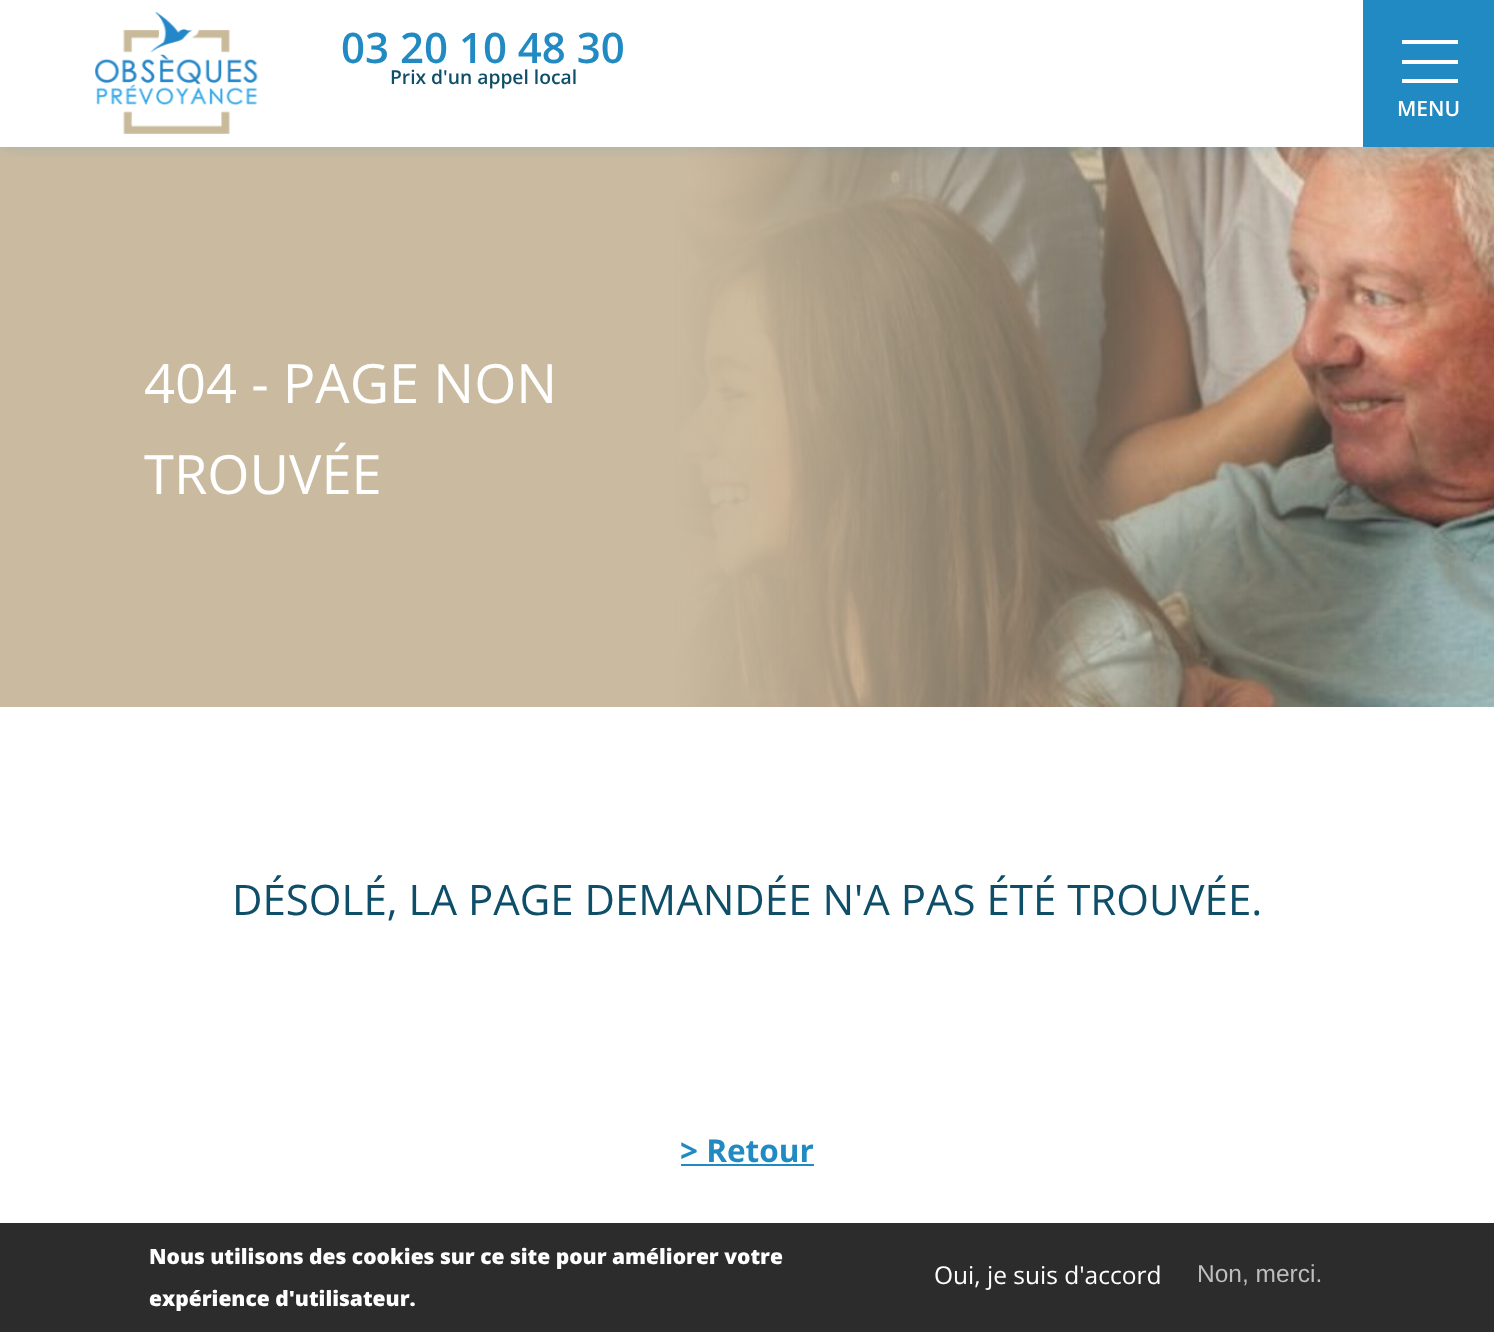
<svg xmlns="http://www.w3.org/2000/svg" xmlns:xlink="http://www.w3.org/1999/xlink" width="1494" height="1332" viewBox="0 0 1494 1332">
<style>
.cls-1{font:600 42px Open Sans;fill:#218ac3}
.cls-2{font:600 19.25px Open Sans;fill:#0e4e69}
.cls-3{font:600 21px Open Sans;fill:#ffffff}
.cls-4{font:54.25px Open Sans;fill:#ffffff}
.cls-5{font:42px Open Sans;fill:#0e4e69}
.cls-6{font:bold 31.5px Open Sans;fill:#218ac3}
.cls-7{font:800 21px Open Sans;fill:#ffffff}
.cls-8{font:24.5px Open Sans;fill:#ffffff}
.cls-9{font:24.5px Liberation Sans;fill:#bdbdbd}
</style>
<defs>
<clipPath id="clip1"><rect x="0" y="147" width="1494" height="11"/></clipPath>
</defs>
<rect width="100%" height="100%" fill="#ffffff"/>
<image xlink:href="image1.png" x="0" y="147" width="1494" height="560"/>
<g clip-path="url(#clip1)">
<rect fill="#218ac2" fill-opacity="0.25" filter="blur(9px)" x="2" y="2" width="1491" height="143"/>
</g>
<image xlink:href="image0.png" x="95" y="11" width="163" height="123"/>
<rect fill="#218ac3" x="1363" y="0" width="131" height="147"/>
<rect fill="#ffffff" x="1402" y="40" width="56" height="4"/>
<rect fill="#ffffff" x="1402" y="60" width="56" height="4"/>
<rect fill="#ffffff" x="1402" y="79" width="56" height="4"/>
<rect fill="#218ac3" x="681" y="1164" width="133" height="2"/>
<rect fill="#2c2c2c" x="0" y="1223" width="1494" height="109"/>
<text class="cls-1" x="341" y="63">03 20 10 48 30</text>
<text class="cls-2" x="390" y="84">Prix d'un appel local</text>
<text class="cls-3" x="1397" y="116">MENU</text>
<text class="cls-4"><tspan x="144" y="403">404 - PAGE NON</tspan><tspan x="144" y="494">TROUVÉE</tspan></text>
<text class="cls-5" x="232" y="915">DÉSOLÉ, LA PAGE DEMANDÉE N'A PAS ÉTÉ TROUVÉE.</text>
<text class="cls-6" x="680" y="1162">&gt; Retour</text>
<text class="cls-7" x="149" y="1264">Nous utilisons des cookies sur ce site pour améliorer votre</text>
<text class="cls-7" x="149" y="1306">expérience d'utilisateur.</text>
<text class="cls-8" x="934" y="1284">Oui, je suis d'accord</text>
<text class="cls-9" x="1197" y="1282">Non, merci.</text>
</svg>
